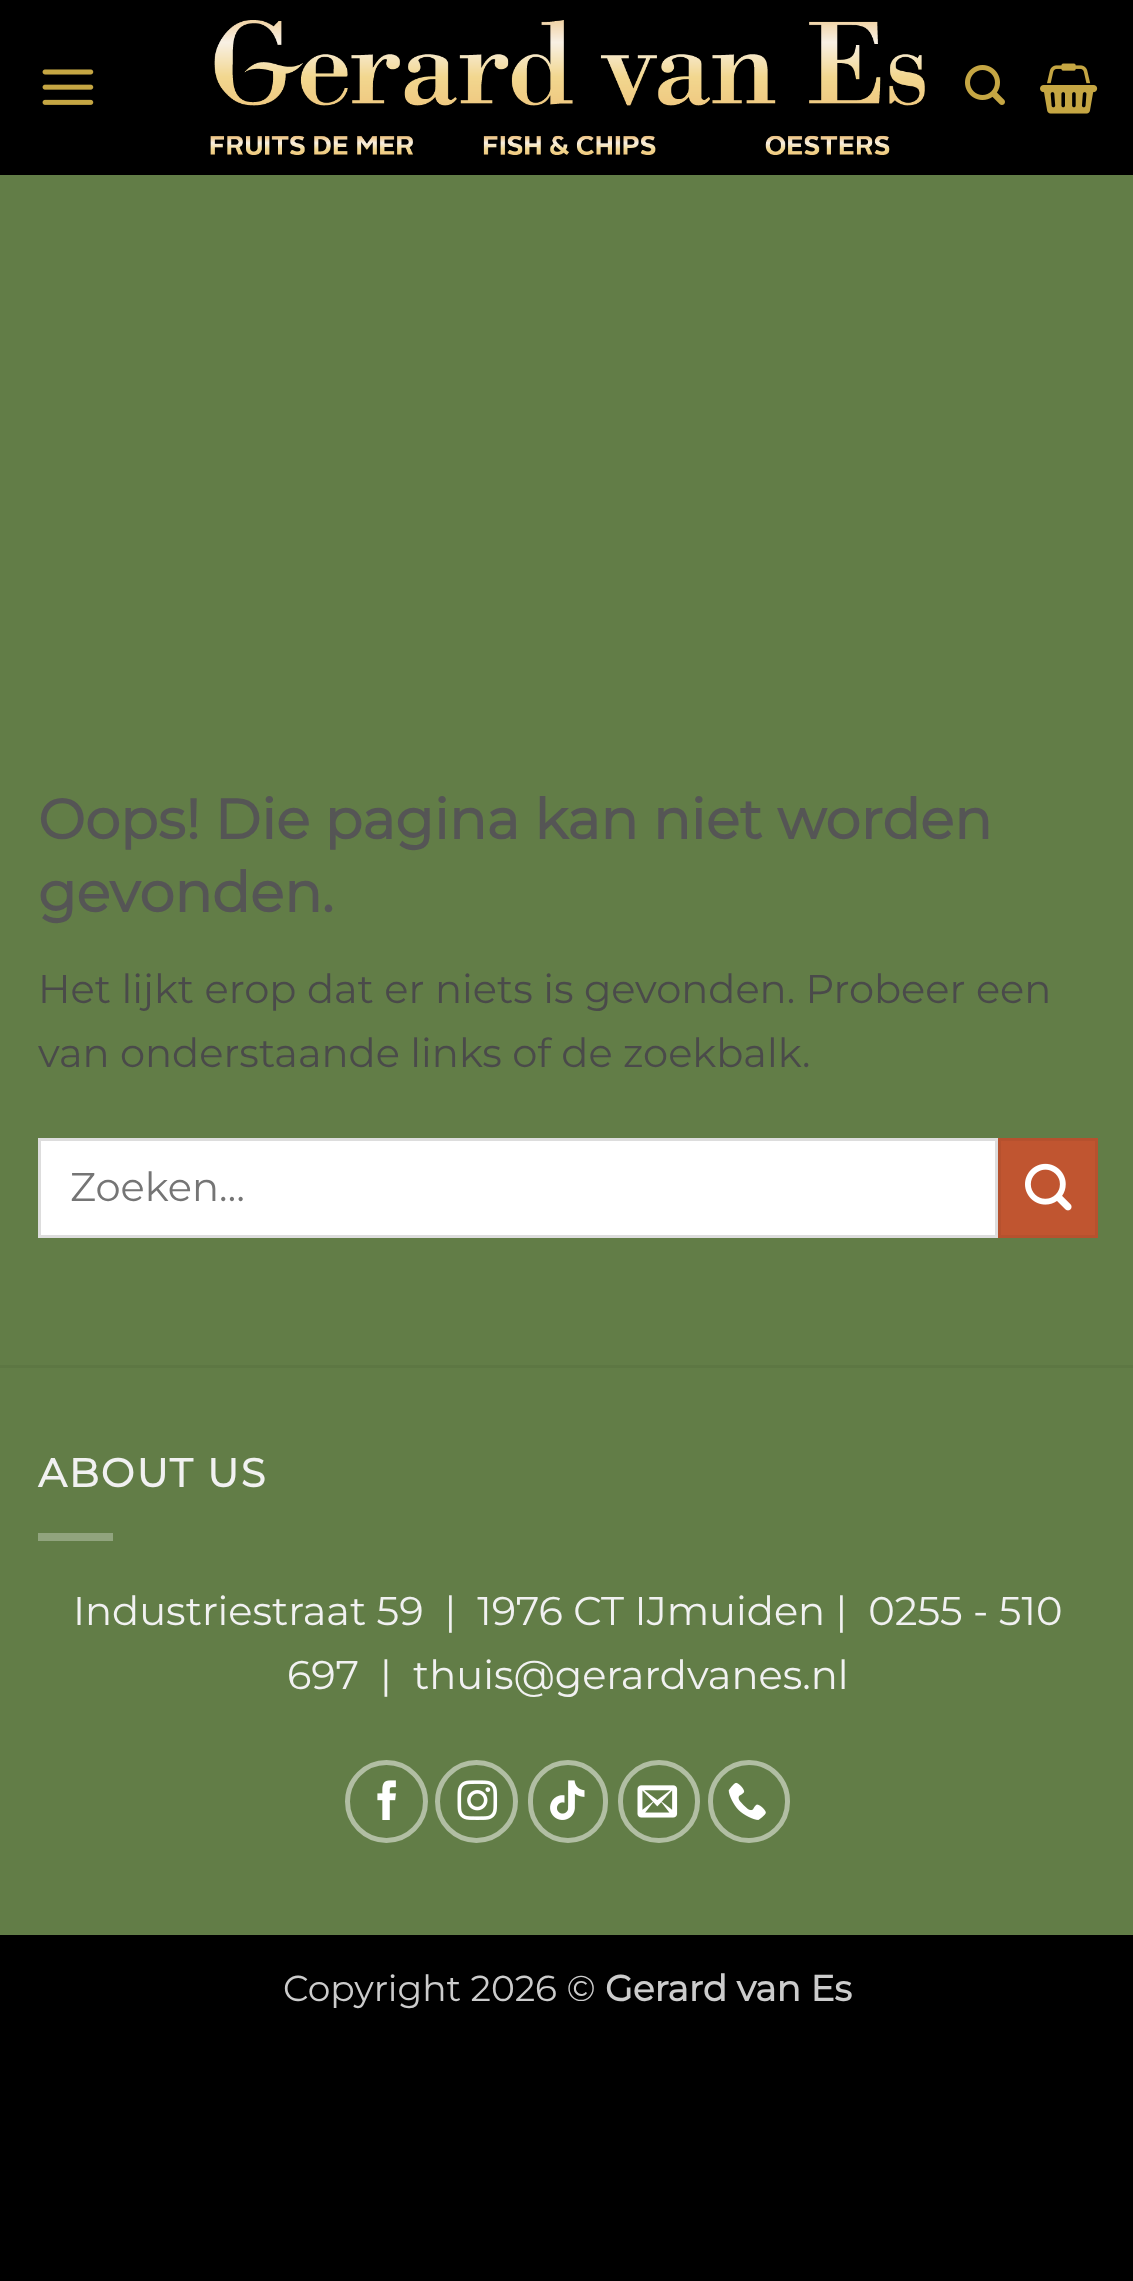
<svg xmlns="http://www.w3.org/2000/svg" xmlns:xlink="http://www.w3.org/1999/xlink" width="1133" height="2281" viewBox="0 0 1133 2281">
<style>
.cls-1{font:bold 56px Montserrat;fill:#555555}
.cls-2{font:100 40px Montserrat;fill:#4a4a4a}
.cls-3{font:100 40px Montserrat;fill:#757575}
.cls-4{font:bold 40px Montserrat;letter-spacing:2px;fill:#f1f1f1}
.cls-5{font:100 40px Montserrat;fill:#f1f1f1}
.cls-6{font:100 36px Montserrat;fill:#cccccc}
.cls-7{font:bold 36px Montserrat;fill:#cccccc}
</style>
<rect width="100%" height="100%" fill="#000000"/>
<rect fill="#627d47" x="0" y="175" width="1133" height="1760"/>
<image xlink:href="image0.png" x="42" y="69" width="52" height="36"/>
<image xlink:href="image1.png" x="210" y="20" width="715" height="135"/>
<image xlink:href="image2.png" x="965" y="65" width="40" height="40"/>
<image xlink:href="image3.png" x="1040" y="63" width="58" height="51"/>
<rect fill="#ffffff" stroke="#dddddd" stroke-width="3" x="39.5" y="1139.5" width="957" height="97"/>
<rect fill="#c05530" stroke="#b6512e" stroke-width="3" x="999.5" y="1139.5" width="97" height="97"/>
<image xlink:href="image4.png" x="1025" y="1163" width="47" height="48"/>
<rect fill="#5d7743" x="0" y="1365" width="1133" height="3"/>
<rect fill="#91a47e" x="38" y="1533" width="75" height="8"/>
<circle fill="none" stroke="#b1bea3" stroke-width="5" cx="386.5" cy="1801.5" r="39"/>
<image xlink:href="image5.png" x="377" y="1780" width="19" height="40"/>
<circle fill="none" stroke="#b1bea3" stroke-width="5" cx="476.5" cy="1801.5" r="39"/>
<image xlink:href="image6.png" x="457" y="1780" width="41" height="40"/>
<rect fill="none" stroke="#b1bea3" stroke-width="5" x="530.5" y="1762.5" width="75" height="78" rx="37.5"/>
<image xlink:href="image7.png" x="550" y="1780" width="35" height="40"/>
<rect fill="none" stroke="#b1bea3" stroke-width="5" x="620.5" y="1762.5" width="77" height="78" rx="38.5"/>
<image xlink:href="image8.png" x="637" y="1785" width="41" height="33"/>
<rect fill="none" stroke="#b1bea3" stroke-width="5" x="710.5" y="1762.5" width="77" height="78" rx="38.5"/>
<image xlink:href="image9.png" x="728" y="1782" width="38" height="38"/>
<text class="cls-1"><tspan x="38" y="839">Oops! Die pagina kan niet worden</tspan><tspan x="38" y="912">gevonden.</tspan></text>
<text class="cls-2"><tspan x="38" y="1003">Het lijkt erop dat er niets is gevonden. Probeer een</tspan><tspan x="38" y="1067">van onderstaande links of de zoekbalk.</tspan></text>
<text class="cls-3" x="70" y="1201">Zoeken…</text>
<text class="cls-4" x="38" y="1487">ABOUT US</text>
<text class="cls-5" xml:space="preserve" x="73" y="1625">Industriestraat 59  |  1976 CT IJmuiden |  0255 - 510</text>
<text class="cls-5" xml:space="preserve" x="287" y="1689">697  |</text>
<text class="cls-5" x="413" y="1689">thuis@gerardvanes.nl</text>
<text class="cls-6" x="283" y="2001">Copyright 2026 ©</text>
<text class="cls-7" x="605" y="2001">Gerard van Es</text>
</svg>
